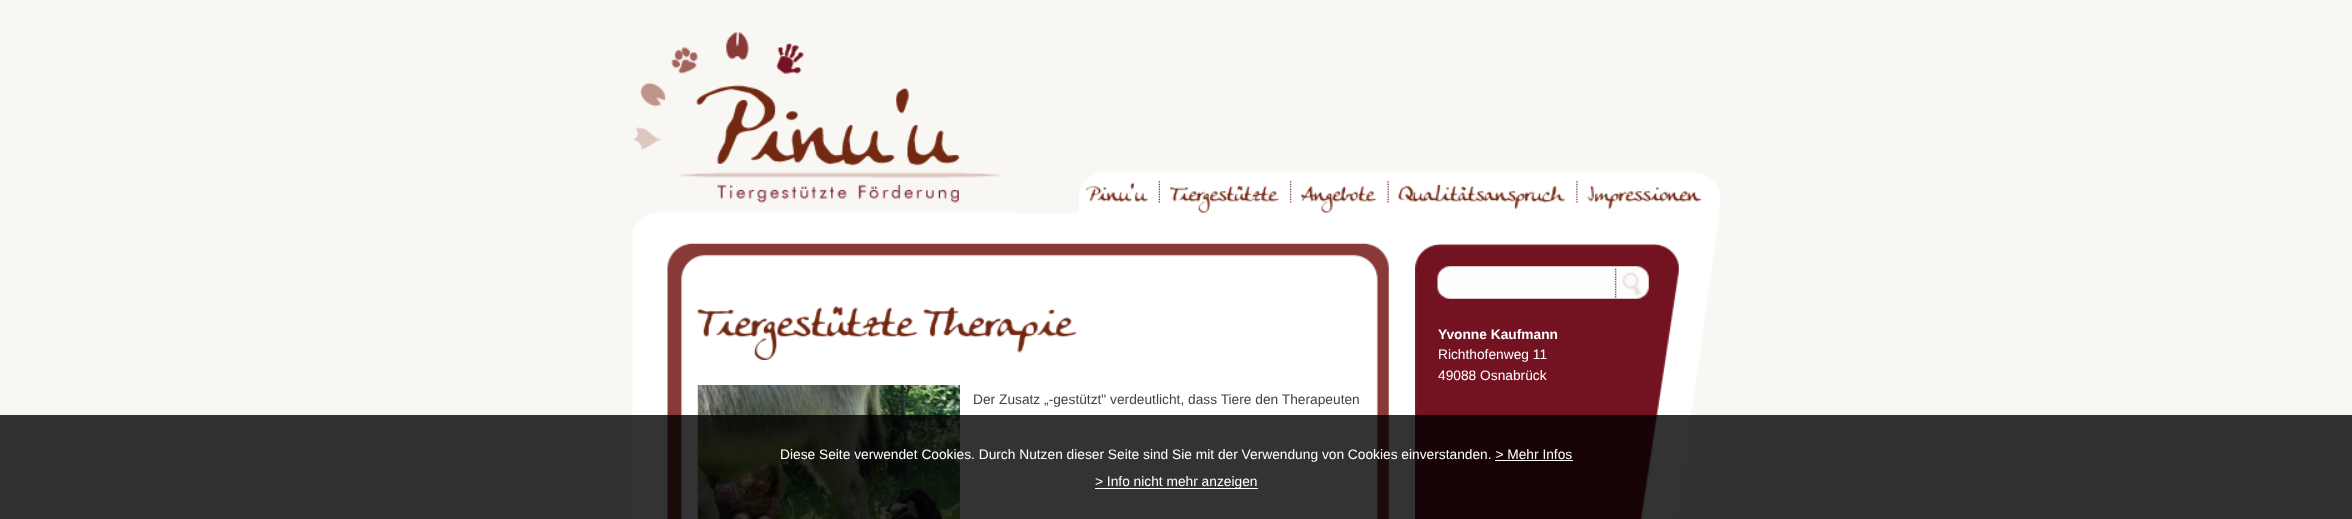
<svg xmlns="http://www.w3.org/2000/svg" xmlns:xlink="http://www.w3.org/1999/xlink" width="2352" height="519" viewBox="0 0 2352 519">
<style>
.cls-1{font:bold 13.75px Liberation Sans;fill:#ffffff}
.cls-2{font:13.75px Liberation Sans;fill:#ffffff}
.cls-3{font:13.75px Liberation Sans;fill:#424242}
</style>
<rect width="100%" height="100%" fill="#f8f7f3"/>
<image xlink:href="image0.png" x="633" y="31" width="368" height="172"/>
<image xlink:href="image1.png" x="1079" y="172" width="641" height="40"/>
<image xlink:href="image2.png" x="1158" y="181" width="2" height="22"/>
<image xlink:href="image3.png" x="1086" y="182" width="62" height="20"/>
<image xlink:href="image4.png" x="1289" y="181" width="3" height="22"/>
<image xlink:href="image11.png" x="632" y="212" width="1088" height="307"/>
<image xlink:href="image5.png" x="1170" y="185" width="109" height="28"/>
<image xlink:href="image6.png" x="1387" y="181" width="2" height="22"/>
<image xlink:href="image7.png" x="1301" y="186" width="76" height="27"/>
<image xlink:href="image8.png" x="1576" y="181" width="2" height="22"/>
<image xlink:href="image9.png" x="1398" y="183" width="167" height="26"/>
<image xlink:href="image10.png" x="1587" y="186" width="115" height="23"/>
<image xlink:href="image12.png" x="1415" y="243" width="264" height="276"/>
<image xlink:href="image13.png" x="1437" y="266" width="212" height="33"/>
<image xlink:href="image14.png" x="697" y="306" width="380" height="54"/>
<image xlink:href="image15.png" x="697" y="385" width="263" height="134"/>
<rect fill="#000000" fill-opacity="0.8" x="0" y="415" width="2352" height="104"/>
<rect fill="#ffffff" x="1495" y="460" width="78" height="1"/>
<rect fill="#ffffff" x="1095" y="488" width="163" height="1"/>
<text class="cls-1" x="1438" y="339">Yvonne Kaufmann</text>
<text class="cls-2"><tspan x="1438" y="359">Richthofenweg 11</tspan><tspan x="1438" y="380">49088 Osnabrück</tspan></text>
<text class="cls-3" x="973" y="404">Der Zusatz „-gestützt" verdeutlicht, dass Tiere den Therapeuten</text>
<text class="cls-2" x="780" y="459">Diese Seite verwendet Cookies. Durch Nutzen dieser Seite sind Sie mit der Verwendung von Cookies einverstanden. &gt; Mehr Infos</text>
<text class="cls-2" x="1095" y="486">&gt; Info nicht mehr anzeigen</text>
</svg>
